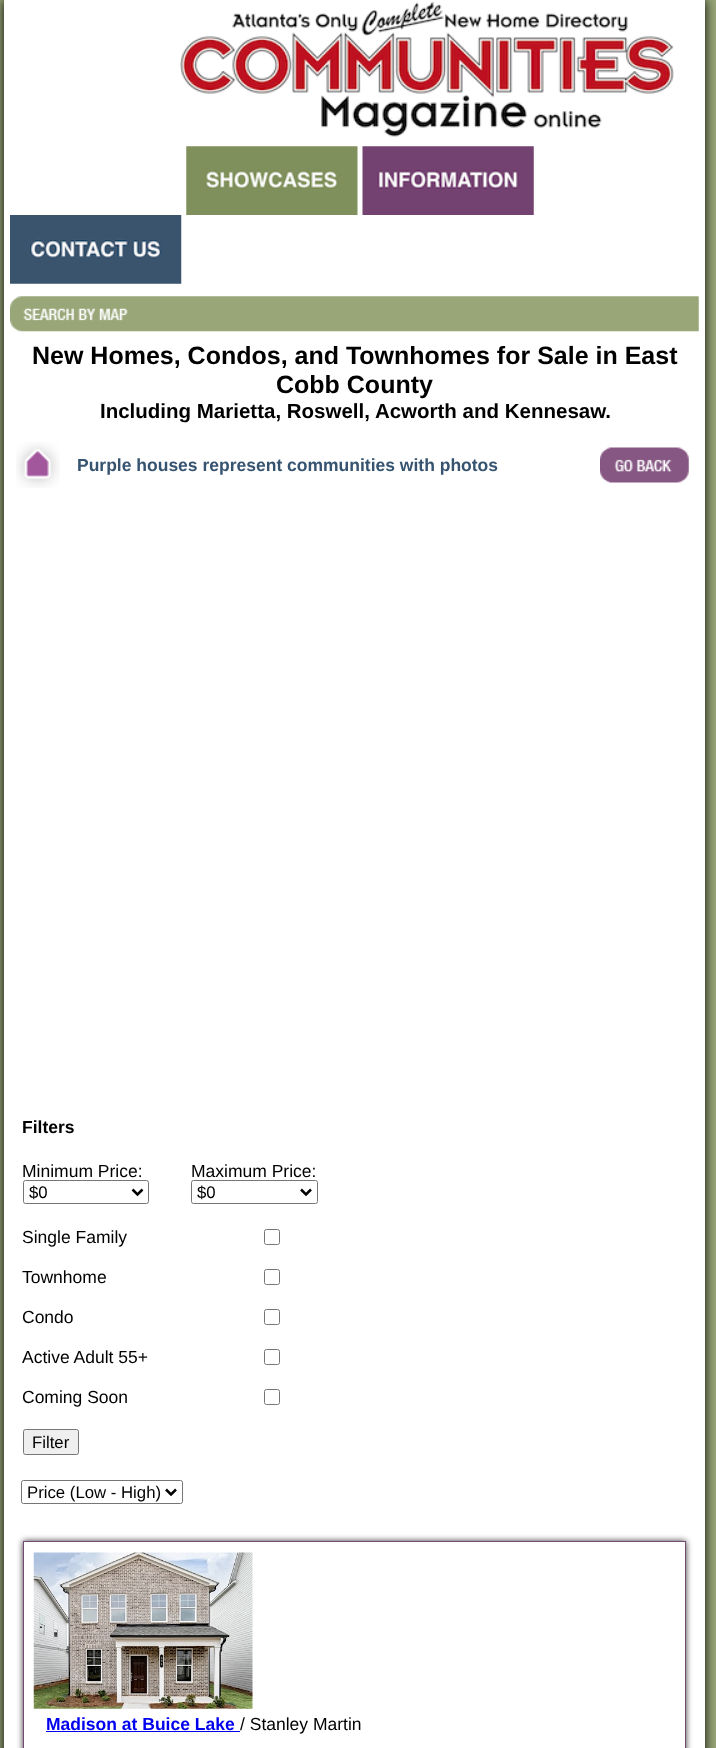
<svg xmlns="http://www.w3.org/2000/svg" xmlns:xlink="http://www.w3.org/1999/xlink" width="716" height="1748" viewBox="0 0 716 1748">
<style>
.cls-1{font:bold 25px Liberation Sans;fill:#000000}
.cls-2{font:bold 20.5px Liberation Sans;fill:#000000}
.cls-3{font:bold 17.5px Liberation Sans;fill:#365370}
.cls-4{font:bold 17.5px Liberation Sans;fill:#000000}
.cls-5{font:17.5px Liberation Sans;fill:#000000}
.cls-6{font:16.75px Liberation Sans;fill:#000000}
.cls-7{font:bold 17.5px Liberation Sans;fill:#0000ee}
</style>
<rect width="100%" height="100%" fill="#98a678"/>
<rect fill="#000000" filter="blur(6px)" x="4" y="0" width="701" height="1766"/>
<rect fill="#ffffff" x="4" y="0" width="701" height="1748"/>
<image xlink:href="image0.png" x="180" y="1" width="494" height="136"/>
<image xlink:href="image1.png" x="186" y="146" width="172" height="69"/>
<image xlink:href="image2.png" x="362" y="146" width="172" height="69"/>
<image xlink:href="image3.png" x="10" y="215" width="172" height="69"/>
<image xlink:href="image4.png" x="10" y="296" width="689" height="36"/>
<image xlink:href="image5.png" x="16" y="442" width="44" height="46"/>
<image xlink:href="image6.png" x="600" y="447" width="89" height="36"/>
<rect fill="none" stroke="#767676" x="23.5" y="1180.5" width="125" height="23" rx="2"/>
<path fill="none" stroke="#000000" stroke-width="2.5" d="M132.5 1189.5L137.5 1194.5L142.5 1189.5"/>
<rect fill="none" stroke="#767676" x="191.5" y="1180.5" width="126" height="23" rx="2"/>
<path fill="none" stroke="#000000" stroke-width="2.5" d="M301 1189.5L306 1194.5L311 1189.5"/>
<rect fill="none" stroke="#767676" x="264.5" y="1229.5" width="15" height="15" rx="2"/>
<rect fill="none" stroke="#767676" x="264.5" y="1269.5" width="15" height="15" rx="2"/>
<rect fill="none" stroke="#767676" x="264.5" y="1309.5" width="15" height="15" rx="2"/>
<rect fill="none" stroke="#767676" x="264.5" y="1349.5" width="15" height="15" rx="2"/>
<rect fill="none" stroke="#767676" x="264.5" y="1389.5" width="15" height="15" rx="2"/>
<rect fill="#efefef" stroke="#767676" x="23.5" y="1429.5" width="55" height="25" rx="2"/>
<rect fill="none" stroke="#767676" x="21.5" y="1480.5" width="161" height="23" rx="2"/>
<path fill="none" stroke="#000000" stroke-width="2.5" d="M166 1489.5L171 1494.5L176 1489.5"/>
<rect fill="#333333" filter="blur(3px)" x="23" y="1541" width="663" height="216"/>
<rect fill="#ffffff" stroke="#744a72" x="23.5" y="1541.5" width="662" height="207"/>
<image xlink:href="image7.png" x="33" y="1552" width="220" height="157"/>
<rect fill="#0000ee" x="46" y="1731" width="194" height="1"/>
<text class="cls-1" x="32" y="364">New Homes, Condos, and Townhomes for Sale in East</text>
<text class="cls-1" x="276" y="393">Cobb County</text>
<text class="cls-2" x="100" y="418">Including Marietta, Roswell, Acworth and Kennesaw.</text>
<text class="cls-3" x="77" y="471">Purple houses represent communities with photos</text>
<text class="cls-4" x="22" y="1133">Filters</text>
<text class="cls-5" x="22" y="1177">Minimum Price:</text>
<text class="cls-6" x="29" y="1198">$0</text>
<text class="cls-5" x="191" y="1177">Maximum Price:</text>
<text class="cls-6" x="197" y="1198">$0</text>
<text class="cls-5" x="22" y="1243">Single Family</text>
<text class="cls-5" x="22" y="1283">Townhome</text>
<text class="cls-5" x="22" y="1323">Condo</text>
<text class="cls-5" x="22" y="1363">Active Adult 55+</text>
<text class="cls-5" x="22" y="1403">Coming Soon</text>
<text class="cls-6" x="32" y="1448">Filter</text>
<text class="cls-6" x="27" y="1498">Price (Low - High)</text>
<text class="cls-7" x="46" y="1730">Madison at Buice Lake</text>
<text class="cls-5" x="240" y="1730">/ Stanley Martin</text>
</svg>
